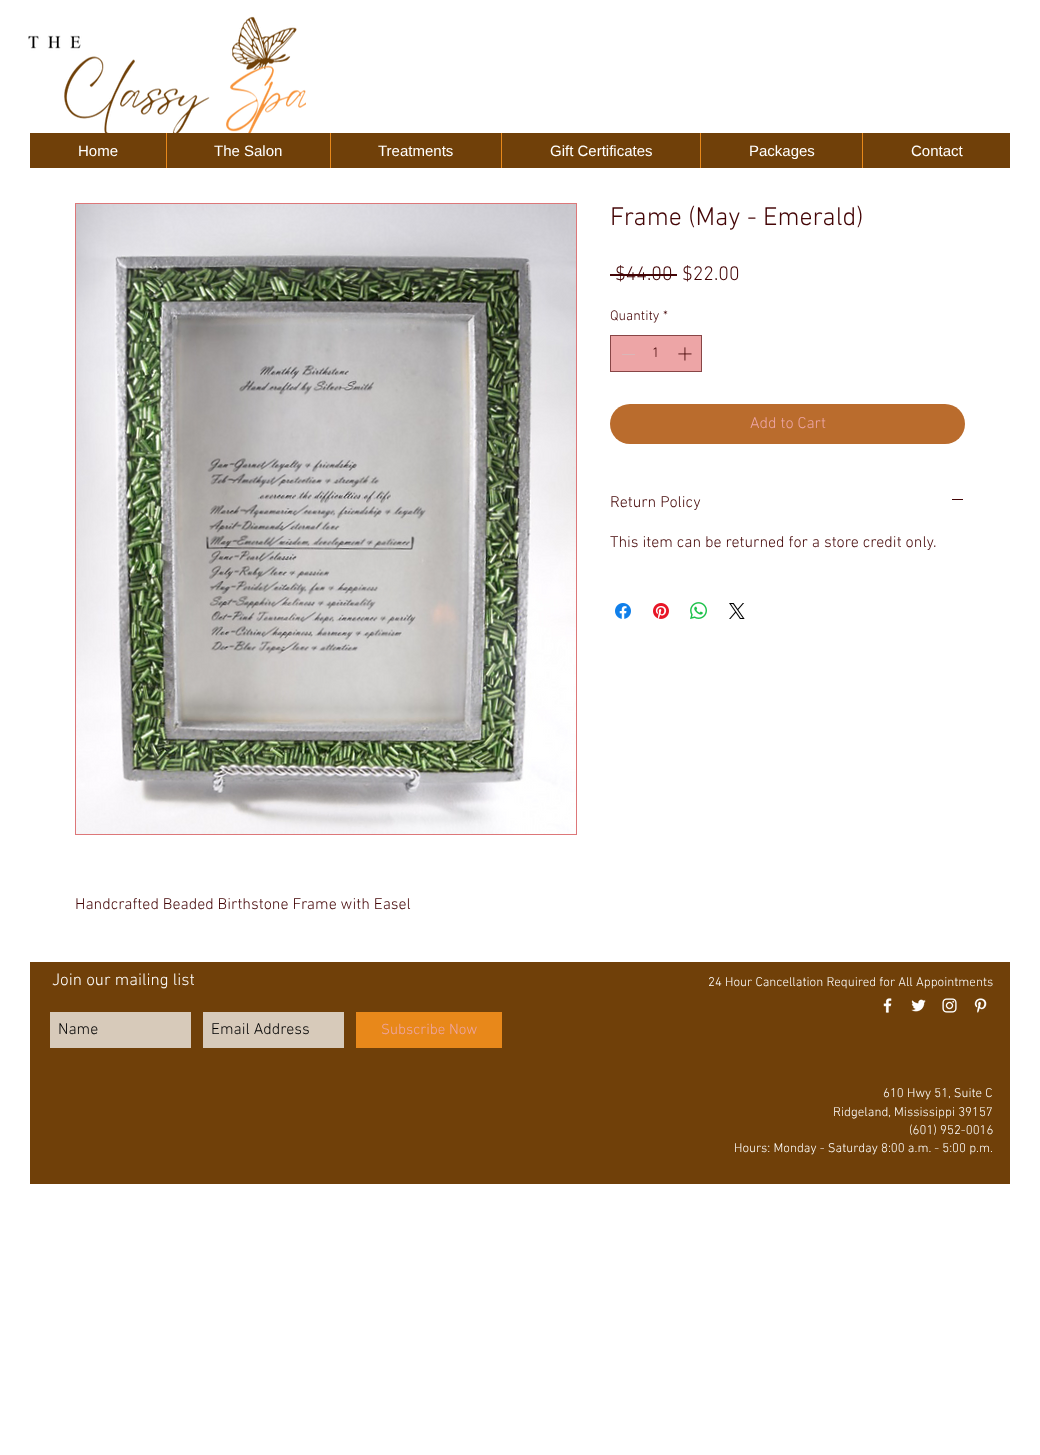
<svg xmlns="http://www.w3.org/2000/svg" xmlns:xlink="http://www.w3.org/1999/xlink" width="1040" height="1455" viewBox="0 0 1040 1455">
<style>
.cls-1{font:15px Liberation Sans;fill:#ffffff}
.cls-2{font:300 26px 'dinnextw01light';fill:#440506}
.cls-3{font:300 20px 'dinnextw01light';fill:#440506}
.cls-4{font:300 14px 'dinnextw01light';fill:#440506}
.cls-5{font:300 16px 'dinnextw01light';fill:#eda5a6}
.cls-6{font:300 16px 'dinnextw01light';fill:#440506}
.cls-7{font:300 17px 'dinnextw01light';fill:#ffffff}
.cls-8{font:300 16px 'dinnextw01light';fill:#000000}
.cls-9{font:300 15px 'dinnextw01light';fill:#eda5a6}
.cls-10{font:300 13px 'dinnextw01light';fill:#ffffff}
</style>
<rect width="100%" height="100%" fill="#ffffff"/>
<image xlink:href="image0.png" x="28" y="16" width="278" height="117"/>
<rect fill="#704009" x="30" y="133" width="980" height="35"/>
<rect fill="#e8881a" x="166" y="133" width="1" height="35"/>
<rect fill="#e8881a" x="330" y="133" width="1" height="35"/>
<rect fill="#e8881a" x="501" y="133" width="1" height="35"/>
<rect fill="#e8881a" x="700" y="133" width="1" height="35"/>
<rect fill="#e8881a" x="862" y="133" width="1" height="35"/>
<rect fill="#440506" x="610" y="274" width="67" height="2"/>
<rect fill="#eda5a6" stroke="#884546" x="610.5" y="335.5" width="91" height="36"/>
<rect fill="#dab6b7" x="622" y="354" width="13" height="1"/>
<image xlink:href="image1.png" x="678" y="347" width="14" height="14"/>
<rect fill="#ba6c2d" x="610" y="404" width="355" height="40" rx="20"/>
<rect fill="#440506" x="952" y="499" width="11" height="1"/>
<image xlink:href="image2.png" x="615" y="603" width="16" height="16"/>
<image xlink:href="image3.png" x="653" y="603" width="16" height="16"/>
<image xlink:href="image4.png" x="690" y="602" width="17" height="17"/>
<image xlink:href="image5.png" x="729" y="603" width="16" height="16"/>
<rect fill="none" stroke="#dd7779" x="75.5" y="203.5" width="501" height="631"/>
<image xlink:href="image6.png" x="76" y="204" width="500" height="630"/>
<rect fill="#704009" x="30" y="962" width="980" height="222"/>
<rect fill="#d7caba" x="50" y="1012" width="141" height="36"/>
<rect fill="#d7caba" x="203" y="1012" width="141" height="36"/>
<rect fill="#e8881a" x="356" y="1012" width="146" height="36"/>
<image xlink:href="image7.png" x="883" y="998" width="9" height="15"/>
<image xlink:href="image8.png" x="911" y="999" width="15" height="13"/>
<image xlink:href="image9.png" x="942" y="998" width="15" height="15"/>
<image xlink:href="image10.png" x="974" y="998" width="13" height="15"/>
<text class="cls-1" x="78" y="156">Home</text>
<text class="cls-1" x="214" y="156">The Salon</text>
<text class="cls-1" x="378" y="156">Treatments</text>
<text class="cls-1" x="550" y="156">Gift Certificates</text>
<text class="cls-1" x="749" y="156">Packages</text>
<text class="cls-1" x="911" y="156">Contact</text>
<text class="cls-2" x="610" y="225">Frame (May - Emerald)</text>
<text class="cls-3" x="615" y="280">$44.00</text>
<text class="cls-3" x="682" y="280">$22.00</text>
<text class="cls-4" x="610" y="320">Quantity</text>
<text class="cls-4" x="663" y="320">*</text>
<text class="cls-4" x="652" y="357">1</text>
<text class="cls-5" x="750" y="428">Add to Cart</text>
<text class="cls-6" x="610" y="507">Return Policy</text>
<text class="cls-6" x="610" y="547">This item can be returned for a store credit only.</text>
<text class="cls-6" x="75" y="909">Handcrafted Beaded Birthstone Frame with Easel</text>
<text class="cls-7" x="52" y="985">Join our mailing list</text>
<text class="cls-8" x="58" y="1034">Name</text>
<text class="cls-8" x="211" y="1034">Email Address</text>
<text class="cls-9" x="381" y="1034">Subscribe Now</text>
<text class="cls-10" x="708" y="986">24 Hour Cancellation Required for All Appointments</text>
<text class="cls-10" x="883" y="1097">610 Hwy 51, Suite C</text>
<text class="cls-10" x="833" y="1116">Ridgeland, Mississippi 39157</text>
<text class="cls-10" x="909" y="1134">(601) 952-0016</text>
<text class="cls-10" x="734" y="1152">Hours: Monday - Saturday 8:00 a.m. - 5:00 p.m.</text>
</svg>
